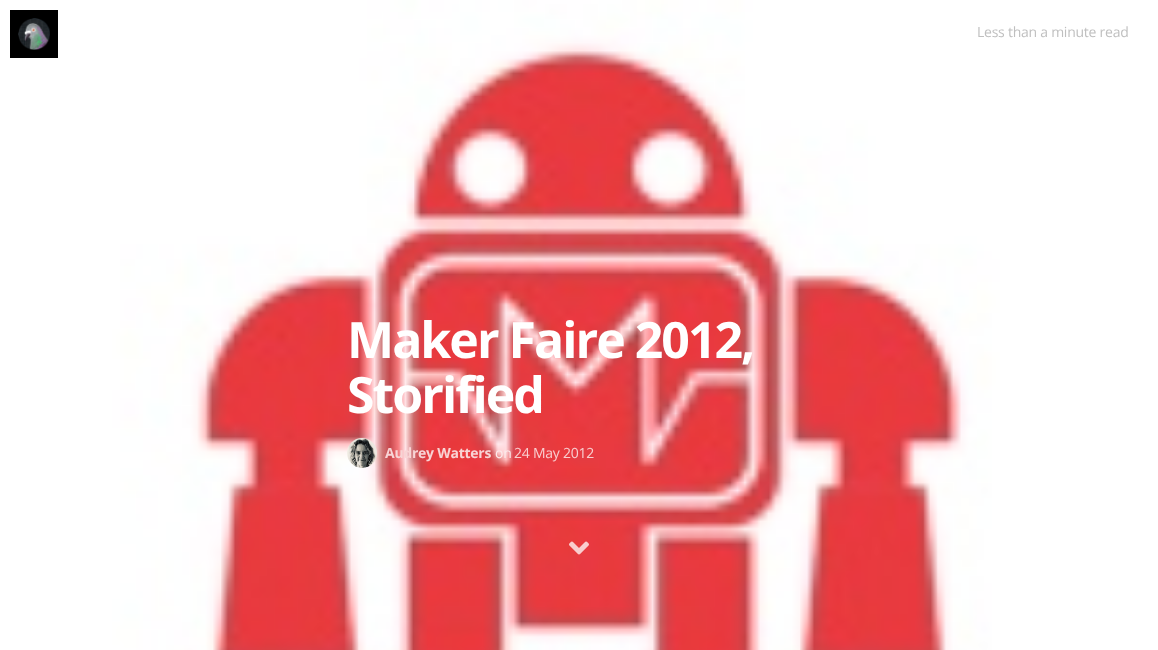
<svg xmlns="http://www.w3.org/2000/svg" xmlns:xlink="http://www.w3.org/1999/xlink" width="1158" height="650" viewBox="0 0 1158 650">
<style>
.cls-1{font:14px Open Sans;letter-spacing:-0.25px;fill:#bfbfbf}
.cls-2{font:bold 50px Open Sans;letter-spacing:-2px;fill:#ffffff}
.cls-3{font:bold 14px Open Sans;letter-spacing:-0.25px;fill:#f8d4d5}
.cls-4{font:14px Open Sans;letter-spacing:-0.25px;fill:#fcebec}
.cls-5{font:14px Open Sans;letter-spacing:-0.25px;fill:#f9cecf}
</style>
<rect width="100%" height="100%" fill="#ffffff"/>
<image xlink:href="image1.png" x="0" y="0" width="1158" height="650"/>
<rect fill="#000000" x="10" y="10" width="48" height="48"/>
<image xlink:href="image0.png" x="18" y="18" width="32" height="32"/>
<image xlink:href="image2.png" x="347" y="438" width="30" height="30"/>
<image xlink:href="image3.png" x="569" y="541" width="20" height="14"/>
<text class="cls-1" x="977" y="37">Less than a minute read</text>
<text class="cls-2"><tspan x="347" y="358">Maker Faire 2012,</tspan><tspan x="347" y="413">Storified</tspan></text>
<text class="cls-3" x="385" y="458">Audrey Watters</text>
<text class="cls-4" x="495" y="458">on</text>
<text class="cls-5" x="514" y="458">24 May 2012</text>
</svg>
